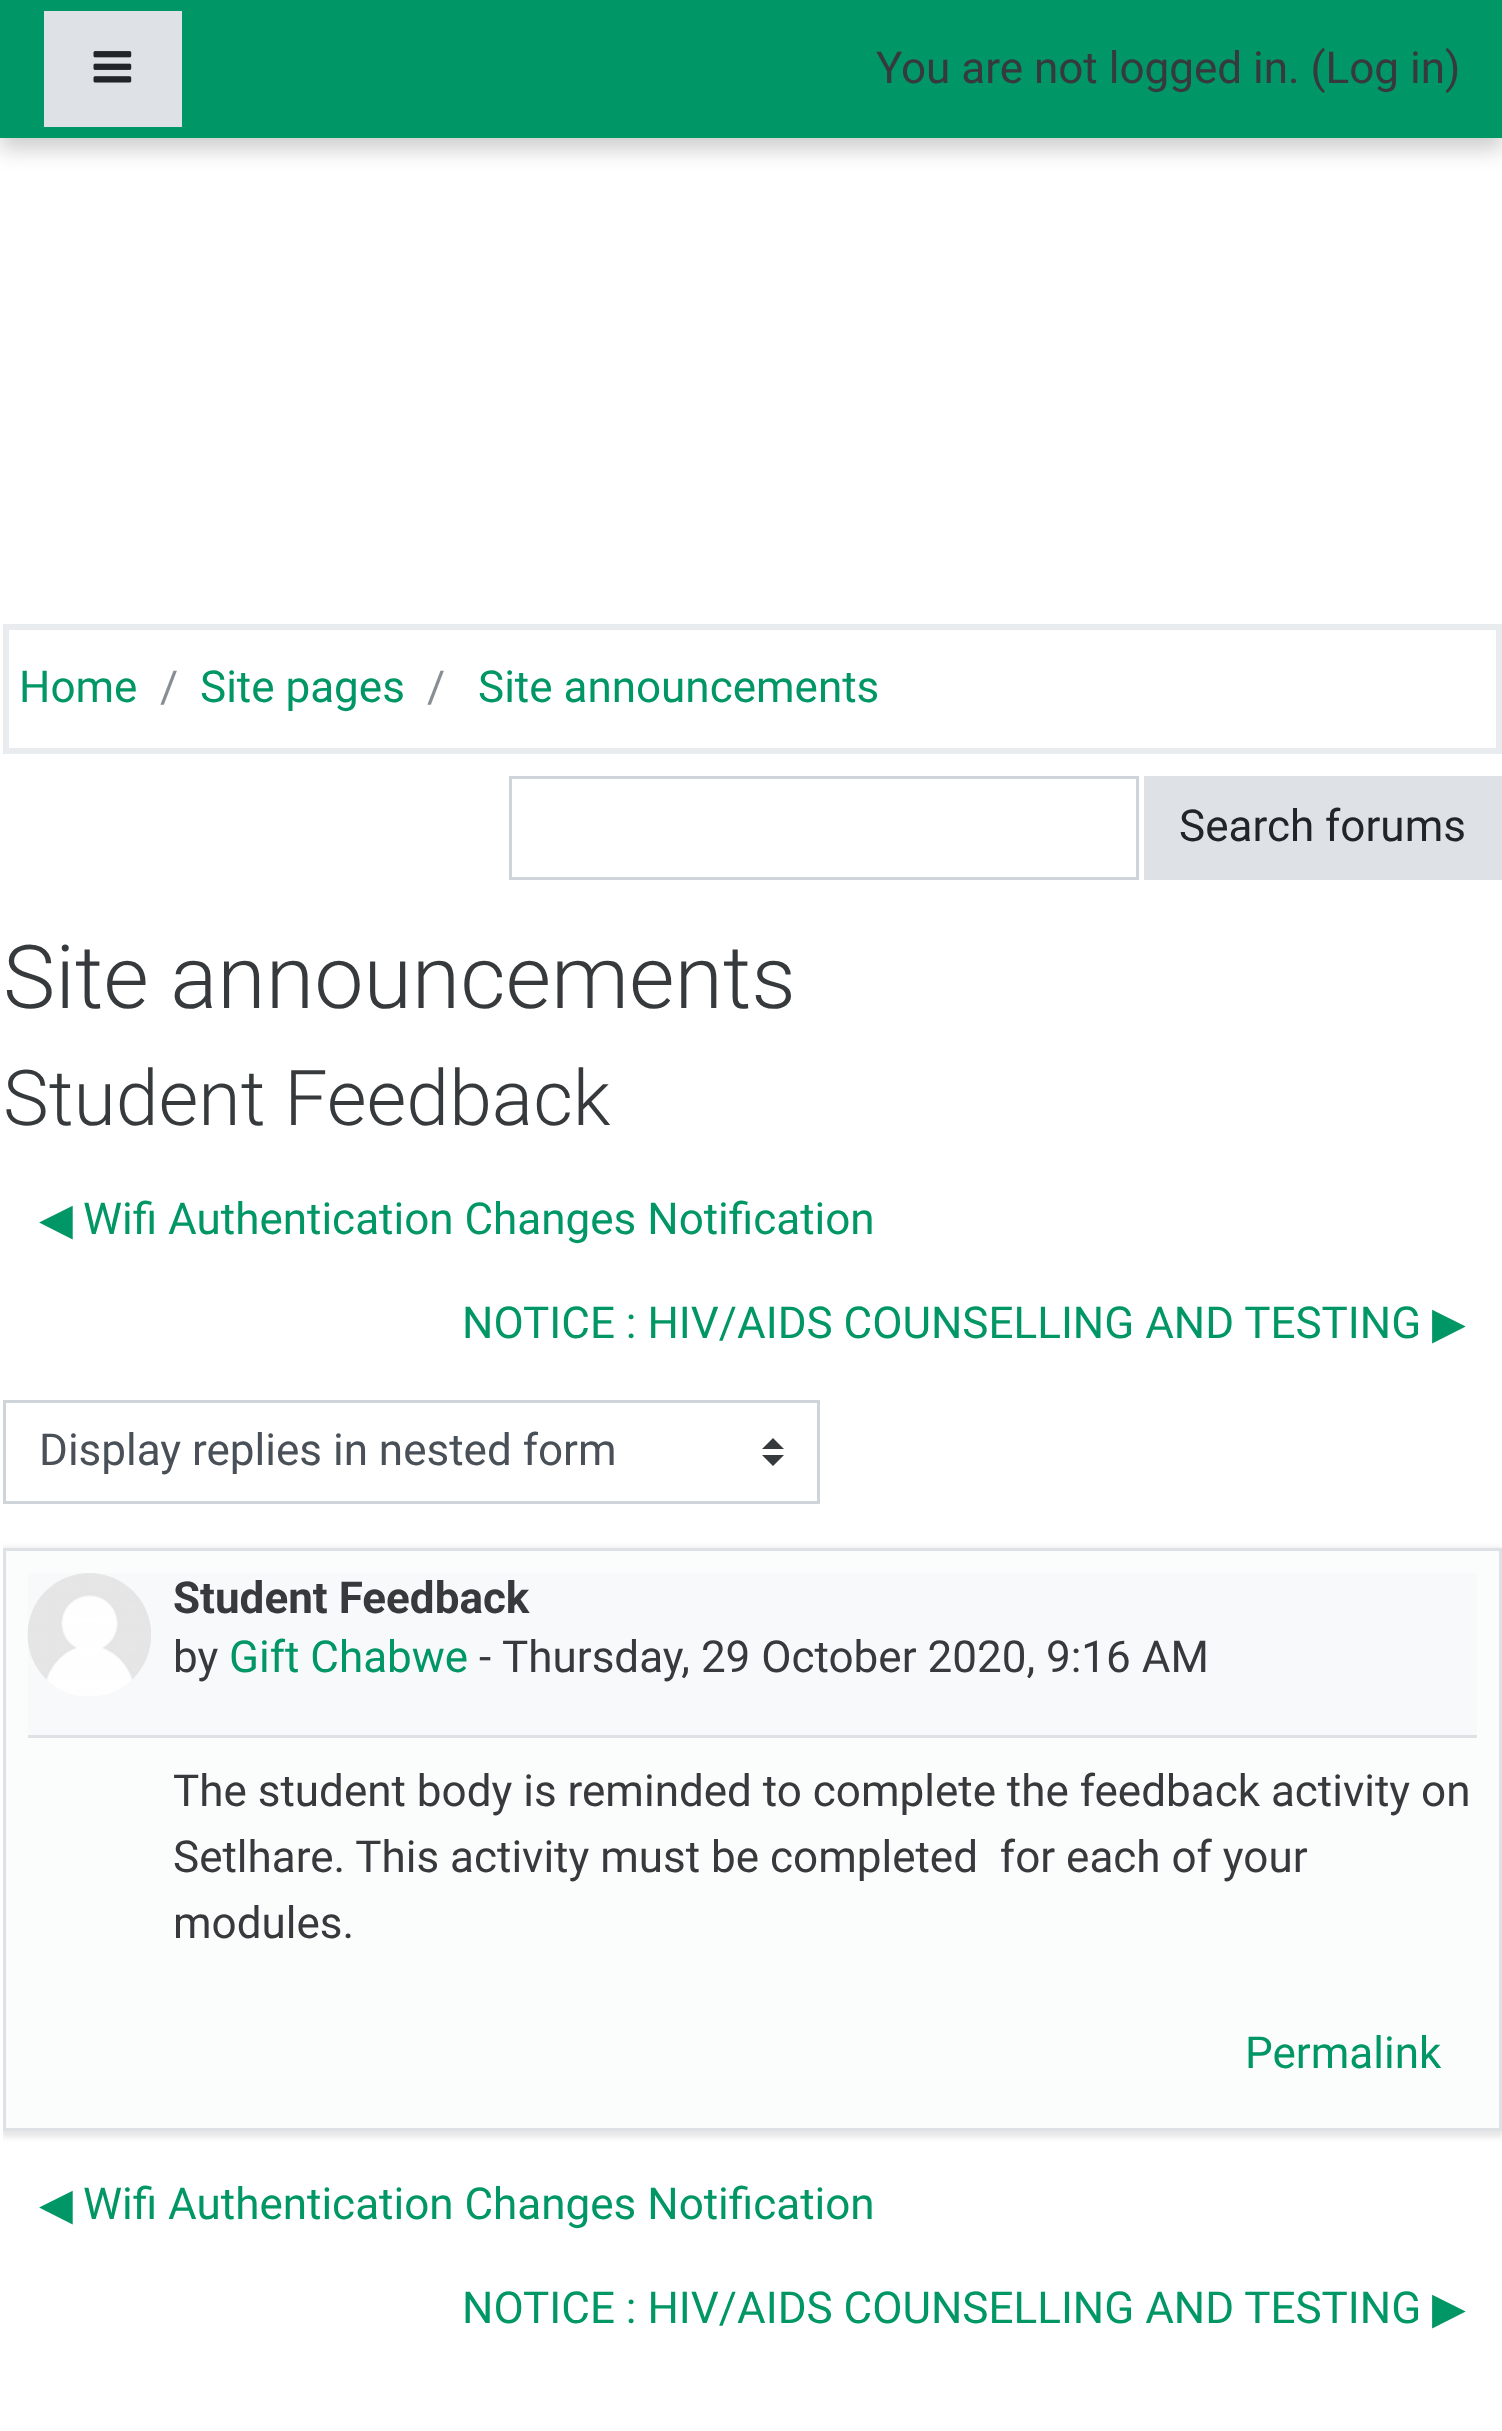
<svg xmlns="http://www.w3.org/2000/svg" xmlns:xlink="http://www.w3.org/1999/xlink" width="1502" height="2431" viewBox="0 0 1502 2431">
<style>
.cls-1{font:44px Roboto;fill:#373a3c}
.cls-2{font:44px Roboto;fill:#009665}
.cls-3{font:44px Roboto;fill:#868e96}
.cls-4{font:44px Roboto;fill:#212529}
.cls-5{font:300 88px Roboto;fill:#373a3c}
.cls-6{font:300 77px Roboto;fill:#373a3c}
.cls-7{font:44px DejaVu Sans;fill:#009665}
.cls-8{font:44px Roboto;fill:#495057}
.cls-9{font:bold 44px Roboto;fill:#373a3c}
</style>
<defs>
<clipPath id="clip1"><rect x="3" y="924" width="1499" height="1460"/></clipPath>
</defs>
<rect width="100%" height="100%" fill="#ffffff"/>
<rect fill="#000000" fill-opacity="0.2" filter="blur(11px)" x="0" y="11" width="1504" height="138"/>
<rect fill="#009665" x="0" y="0" width="1502" height="138"/>
<rect fill="#dee2e6" x="44" y="11" width="138" height="116"/>
<image xlink:href="image0.png" x="93" y="51" width="39" height="32"/>
<rect fill="none" stroke="#e9ecef" stroke-width="6" x="6" y="627" width="1493" height="124"/>
<rect fill="none" stroke="#ced4da" stroke-width="3" x="510.5" y="777.5" width="627" height="101"/>
<rect fill="#dee2e6" x="1144" y="776" width="358" height="104"/>
<path fill="#373a3c" d="M773 1438L762 1449H784ZM773 1466L762 1455H784Z"/>
<rect fill="none" stroke="#ced4da" stroke-width="3" x="4.5" y="1401.5" width="814" height="101"/>
<g clip-path="url(#clip1)">
<rect fill="#000000" fill-opacity="0.1" filter="blur(3px)" x="0" y="1548" width="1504" height="589"/>
</g>
<rect fill="#fbfcfc" stroke="#dee2e6" stroke-width="3" x="4.5" y="1549.5" width="1496" height="580"/>
<rect fill="#f8f9fa" x="28" y="1573" width="1449" height="162"/>
<rect fill="#dee2e6" x="28" y="1735" width="1449" height="3"/>
<image xlink:href="image1.png" x="27" y="1573" width="124" height="123"/>
<text class="cls-1" x="876" y="83">You are not logged in. (Log in)</text>
<text class="cls-2" x="19" y="702">Home</text>
<text class="cls-3" x="160" y="702">/</text>
<text class="cls-2" x="200" y="702">Site pages</text>
<text class="cls-3" x="427" y="702">/</text>
<text class="cls-2" x="478" y="702">Site announcements</text>
<text class="cls-4" x="1179" y="841">Search forums</text>
<text class="cls-5" x="3" y="1008">Site announcements</text>
<text class="cls-6" x="3" y="1125">Student Feedback</text>
<text class="cls-7" x="39" y="1234">◀︎</text>
<text class="cls-2" x="83" y="1234">Wifi Authentication Changes Notification</text>
<text class="cls-2" x="462" y="1338">NOTICE : HIV/AIDS COUNSELLING AND TESTING</text>
<text class="cls-7" x="1432" y="1338">▶︎</text>
<text class="cls-8" x="39" y="1465">Display replies in nested form</text>
<text class="cls-9" x="173" y="1613">Student Feedback</text>
<text class="cls-1" x="173" y="1672">by</text>
<text class="cls-2" x="229" y="1672">Gift Chabwe</text>
<text class="cls-1" x="479" y="1672">-</text>
<text class="cls-1" x="502" y="1672">Thursday, 29 October 2020, 9:16 AM</text>
<text class="cls-1" xml:space="preserve"><tspan x="173" y="1806">The student body is reminded to complete the feedback activity on</tspan><tspan x="173" y="1872">Setlhare. This activity must be completed  for each of your</tspan><tspan x="173" y="1938">modules.</tspan></text>
<text class="cls-2" x="1245" y="2068">Permalink</text>
<text class="cls-7" x="39" y="2219">◀︎</text>
<text class="cls-2" x="83" y="2219">Wifi Authentication Changes Notification</text>
<text class="cls-2" x="462" y="2323">NOTICE : HIV/AIDS COUNSELLING AND TESTING</text>
<text class="cls-7" x="1432" y="2323">▶︎</text>
</svg>
